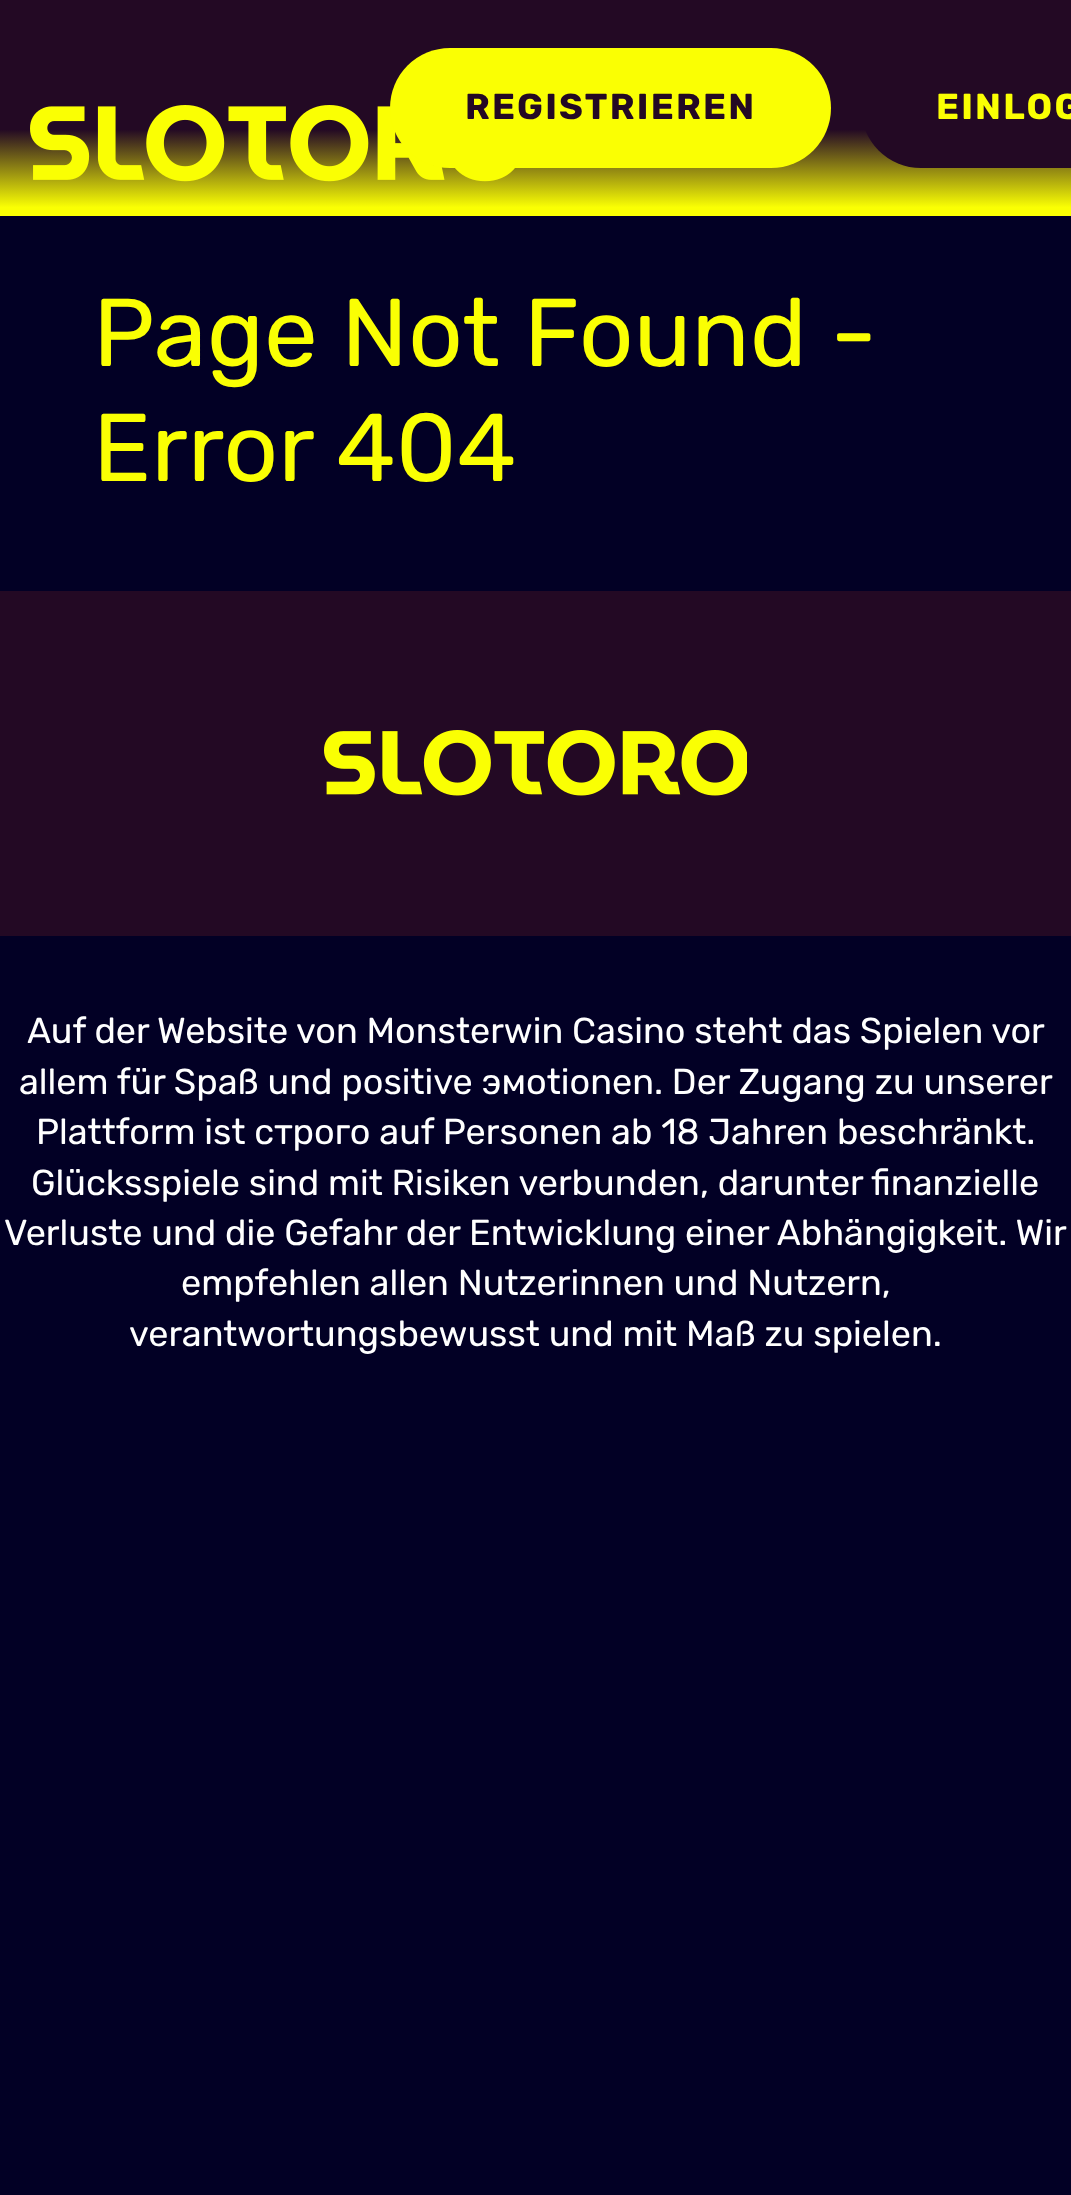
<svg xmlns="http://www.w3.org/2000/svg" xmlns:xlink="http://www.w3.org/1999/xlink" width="1071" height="2195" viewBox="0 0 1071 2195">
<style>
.cls-1{font:bold 36px Rubik;letter-spacing:2.2px;fill:#230924}
.cls-2{font:bold 36px Rubik;letter-spacing:2.2px;fill:#faff03}
.cls-3{font:96px Rubik;fill:#faff03}
.cls-4{font:36px Rubik;fill:#ffffff}
</style>
<defs>
<linearGradient id="g1" gradientUnits="userSpaceOnUse" x1="536" y1="0" x2="536" y2="216"><stop offset="0.6" stop-color="#230924"/><stop offset="0.96" stop-color="#faff03"/></linearGradient>
<linearGradient id="g2" gradientUnits="userSpaceOnUse" x1="1046" y1="38" x2="1054" y2="178"><stop offset="1" stop-color="#230924"/><stop offset="1" stop-color="#5fba47"/></linearGradient>
</defs>
<rect width="100%" height="100%" fill="#020025"/>
<rect fill="url(#g1)" x="0" y="0" width="1071" height="216"/>
<image xlink:href="image0.png" x="30" y="105" width="485" height="77"/>
<rect fill="#faff03" x="390" y="48" width="441" height="120" rx="60"/>
<rect fill="url(#g2)" x="861" y="48" width="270" height="120" rx="60"/>
<rect fill="#230924" x="0" y="591" width="1071" height="345"/>
<image xlink:href="image1.png" x="324" y="730" width="423" height="66"/>
<text class="cls-1" x="465" y="119">REGISTRIEREN</text>
<text class="cls-2" x="936" y="119">EINLOG</text>
<text class="cls-3"><tspan x="93" y="366">Page Not Found -</tspan><tspan x="93" y="481">Error 404</tspan></text>
<text class="cls-4" x="27" y="1043">Auf der Website von Monsterwin Casino steht das Spielen vor</text>
<text class="cls-4" x="19" y="1094">allem für Spaß und positive эмоtionen. Der Zugang zu unserer</text>
<text class="cls-4" x="36" y="1144">Plattform ist строго auf Personen ab 18 Jahren beschränkt.</text>
<text class="cls-4" x="31" y="1195">Glücksspiele sind mit Risiken verbunden, darunter finanzielle</text>
<text class="cls-4" x="4" y="1245">Verluste und die Gefahr der Entwicklung einer Abhängigkeit. Wir</text>
<text class="cls-4" x="181" y="1295">empfehlen allen Nutzerinnen und Nutzern,</text>
<text class="cls-4" x="129" y="1346">verantwortungsbewusst und mit Maß zu spielen.</text>
</svg>
